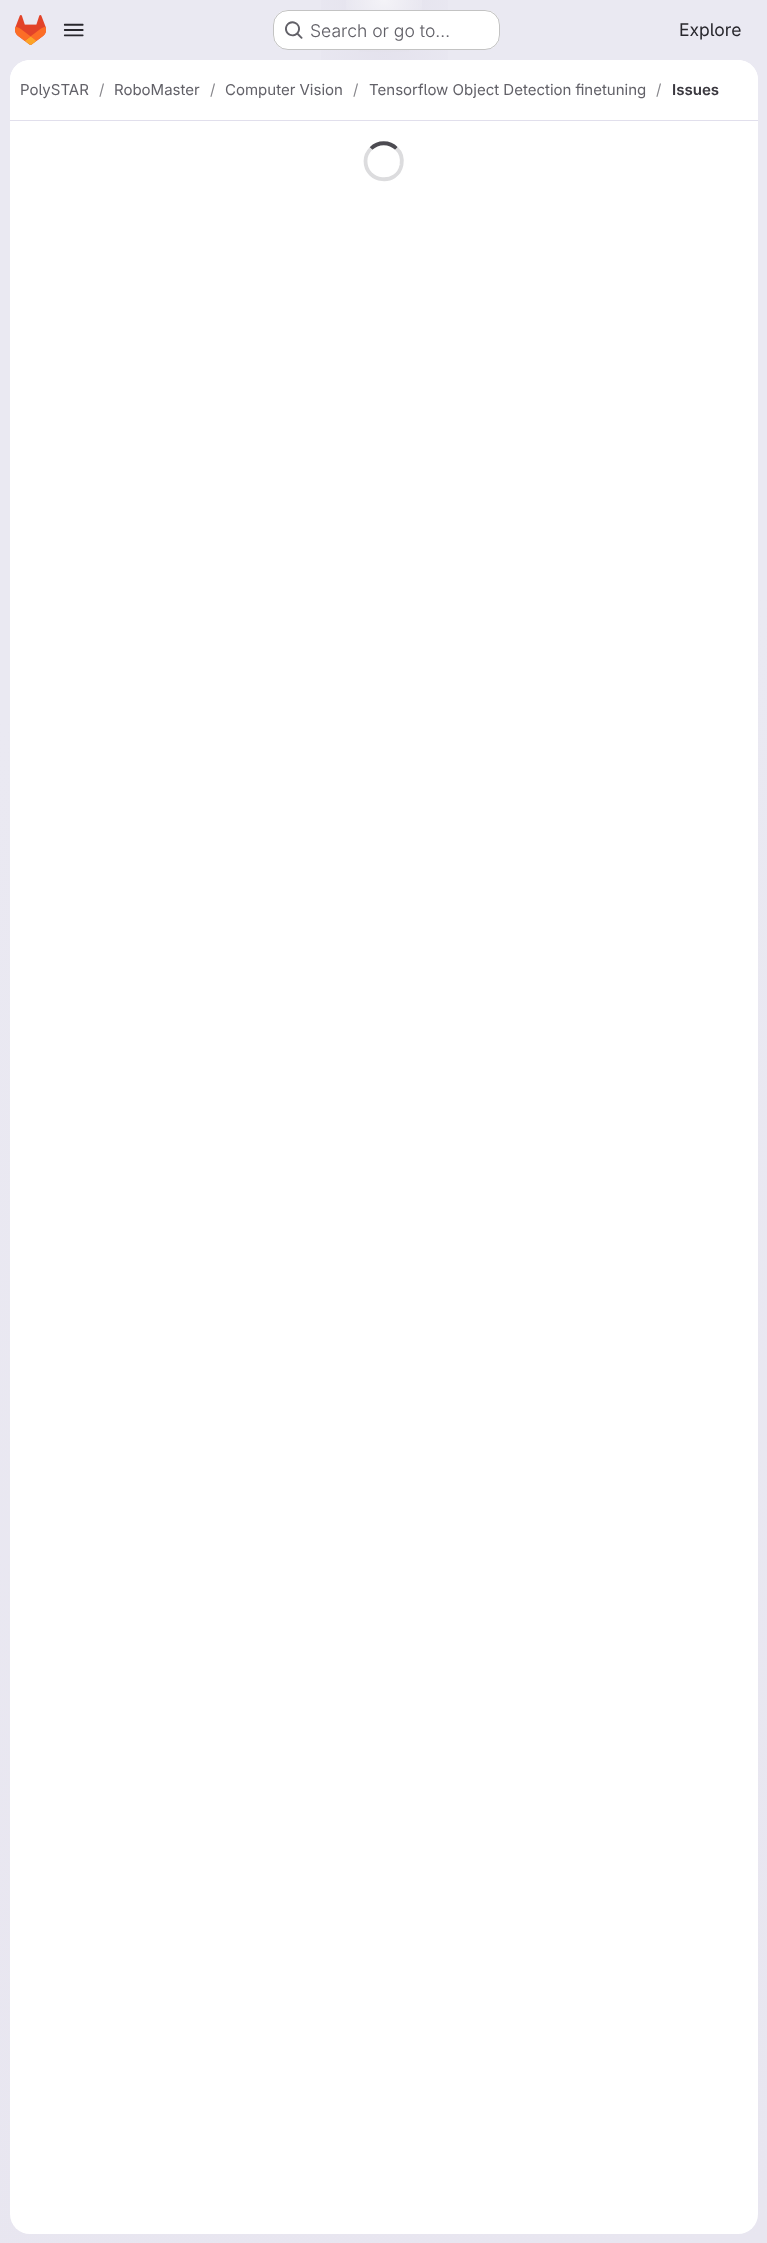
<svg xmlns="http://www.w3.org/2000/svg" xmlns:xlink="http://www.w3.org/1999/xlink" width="767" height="2243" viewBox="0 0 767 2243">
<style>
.cls-1{font:300 17.5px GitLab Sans;fill:#626168}
.cls-2{font:17.5px GitLab Sans;fill:#28272d}
.cls-3{font:15px GitLab Sans;fill:#626168}
.cls-4{font:15px GitLab Sans;fill:#89888d}
.cls-5{font:600 15px GitLab Sans;fill:#3a383f}
</style>
<defs>
<linearGradient id="g1" gradientUnits="userSpaceOnUse" x1="587" y1="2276" x2="180" y2="-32"><stop offset="0" stop-color="#e8e6f0"/><stop offset="0.7" stop-color="#eae9f2"/></linearGradient>
<radialGradient id="g2" gradientUnits="userSpaceOnUse" cx="0" cy="0" r="1" gradientTransform="matrix(384 0 0 2244 384 0)"><stop offset="0" stop-color="#e4e2ed"/><stop offset="0.23" stop-color="#e4e2ed" stop-opacity="0"/></radialGradient>
<radialGradient id="g3" gradientUnits="userSpaceOnUse" cx="0" cy="0" r="1" gradientTransform="matrix(384 0 0 2244 384 0)"><stop offset="0" stop-color="#e4e2ec"/><stop offset="0.16" stop-color="#e4e2ec" stop-opacity="0"/></radialGradient>
<radialGradient id="g4" gradientUnits="userSpaceOnUse" cx="384" cy="0" r="2276"><stop offset="0" stop-color="#ffffff" stop-opacity="0.6"/><stop offset="0.02" stop-color="#ffffff" stop-opacity="0"/></radialGradient>
</defs>
<rect width="100%" height="100%" fill="#ffffff"/>
<rect fill="url(#g1)" x="0" y="0" width="767" height="2243"/>
<rect fill="url(#g2)" x="321" y="0" width="127" height="60"/>
<rect fill="url(#g3)" x="359" y="15" width="50" height="37"/>
<rect fill="url(#g4)" x="346" y="0" width="76" height="39"/>
<image xlink:href="image0.png" x="15" y="15" width="31" height="30"/>
<image xlink:href="image1.png" x="63" y="23" width="21" height="14"/>
<rect fill="#ffffff" x="273" y="10" width="227" height="40" rx="15"/>
<rect fill="none" stroke="#050506" stroke-opacity="0.24" x="273.5" y="10.5" width="226" height="39" rx="14.5"/>
<image xlink:href="image2.png" x="285" y="21" width="18" height="18"/>
<rect fill="#ffffff" x="10" y="60" width="748" height="2174" rx="20"/>
<path fill="#ffffff" d="M30 60H738C749 60 758 69 758 80V121H10V80C10 69 19 60 30 60Z"/>
<rect fill="#e1dfec" x="10" y="120" width="748" height="1"/>
<path fill="none" stroke="#4c4b51" stroke-width="3.8" d="M371 148.5C378 141.5 389.5 141.5 396.5 148.5"/>
<path fill="none" stroke="#dcdcde" stroke-width="3.8" d="M396.5 148.5C401 152.5 402.5 159 401.5 165C397.5 186 365.5 183 365.5 161C365.5 156.5 367.5 152 371 148.5"/>
<text class="cls-1" x="310" y="37">Search or go to…</text>
<text class="cls-2" x="679" y="36">Explore</text>
<text class="cls-3" x="20" y="95">PolySTAR</text>
<text class="cls-4" x="99" y="95">/</text>
<text class="cls-3" x="114" y="95">RoboMaster</text>
<text class="cls-4" x="210" y="95">/</text>
<text class="cls-3" x="225" y="95">Computer Vision</text>
<text class="cls-4" x="353" y="95">/</text>
<text class="cls-3" x="369" y="95">Tensorflow Object Detection finetuning</text>
<text class="cls-4" x="656" y="95">/</text>
<text class="cls-5" x="672" y="95">Issues</text>
</svg>
